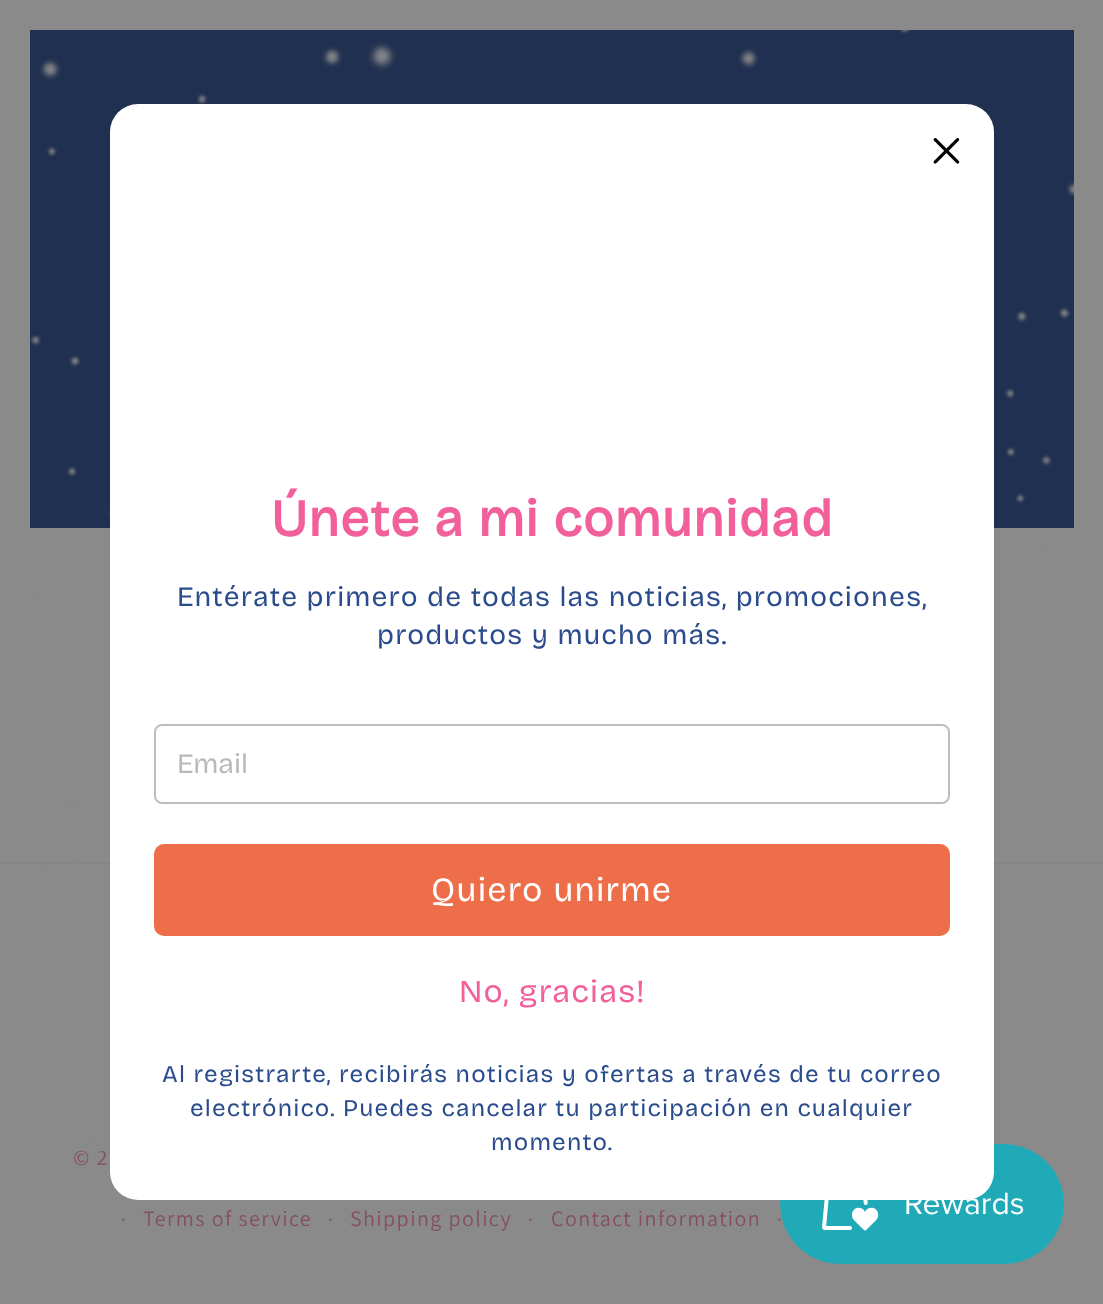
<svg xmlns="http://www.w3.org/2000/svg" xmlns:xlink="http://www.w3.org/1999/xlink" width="1103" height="1304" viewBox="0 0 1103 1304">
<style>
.cls-1{font:22px Assistant;letter-spacing:1.4px;fill:#854e65}
.cls-2{font:20px Assistant;letter-spacing:1.4px;fill:#854e65}
.cls-3{font:24px 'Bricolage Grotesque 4';letter-spacing:1.2px;fill:#2b4c8c}
.cls-4{font:32px 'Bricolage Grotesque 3';letter-spacing:1.2px;fill:#f2609c}
.cls-5{font:34px 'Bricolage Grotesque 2';letter-spacing:1.2px;fill:#ffffff}
.cls-6{font:28px Bricolage Grotesque;fill:#b9b9b9}
.cls-7{font:28px Bricolage Grotesque;letter-spacing:1.2px;fill:#2b4c8c}
.cls-8{font:bold 52px Bricolage Grotesque;letter-spacing:1.2px;fill:#f2609c}
</style>
<rect width="100%" height="100%" fill="#8a8a8a"/>
<rect fill="#203050" x="30" y="30" width="1044" height="498"/>
<rect fill="#898386" x="0" y="862" width="1103" height="2"/>
<text class="cls-1" x="73" y="1165">© 2</text>
<image xlink:href="image0.png" x="30" y="30" width="1044" height="1172"/>
<text class="cls-2" x="121" y="1226">·</text>
<text class="cls-1" x="143" y="1226">Terms of service</text>
<text class="cls-2" x="328" y="1226">·</text>
<text class="cls-1" x="350" y="1226">Shipping policy</text>
<text class="cls-2" x="528" y="1226">·</text>
<text class="cls-1" x="551" y="1226">Contact information</text>
<text class="cls-2" x="777" y="1226">·</text>
<image xlink:href="image2.png" x="780" y="1144" width="284" height="120"/>
<rect fill="#ffffff" x="110" y="104" width="884" height="1096" rx="28"/>
<image xlink:href="image1.png" x="933" y="138" width="27" height="26"/>
<text class="cls-3" x="491" y="1150">momento.</text>
<text class="cls-3" x="190" y="1116">electrónico. Puedes cancelar tu participación en cualquier</text>
<text class="cls-3" x="162" y="1082">Al registrarte, recibirás noticias y ofertas a través de tu correo</text>
<text class="cls-4" x="459" y="1002">No, gracias!</text>
<rect fill="#ee6e49" stroke="#ee6e49" stroke-width="4" x="156" y="846" width="792" height="88" rx="8"/>
<text class="cls-5" x="431" y="901">Quiero unirme</text>
<rect fill="none" stroke="#babfc3" stroke-width="2" x="155" y="725" width="794" height="78" rx="7"/>
<text class="cls-6" x="177" y="773">Email</text>
<text class="cls-7" x="377" y="644">productos y mucho más.</text>
<text class="cls-7" x="177" y="606">Entérate primero de todas las noticias, promociones,</text>
<text class="cls-8" x="271" y="536">Únete a mi comunidad</text>
</svg>
